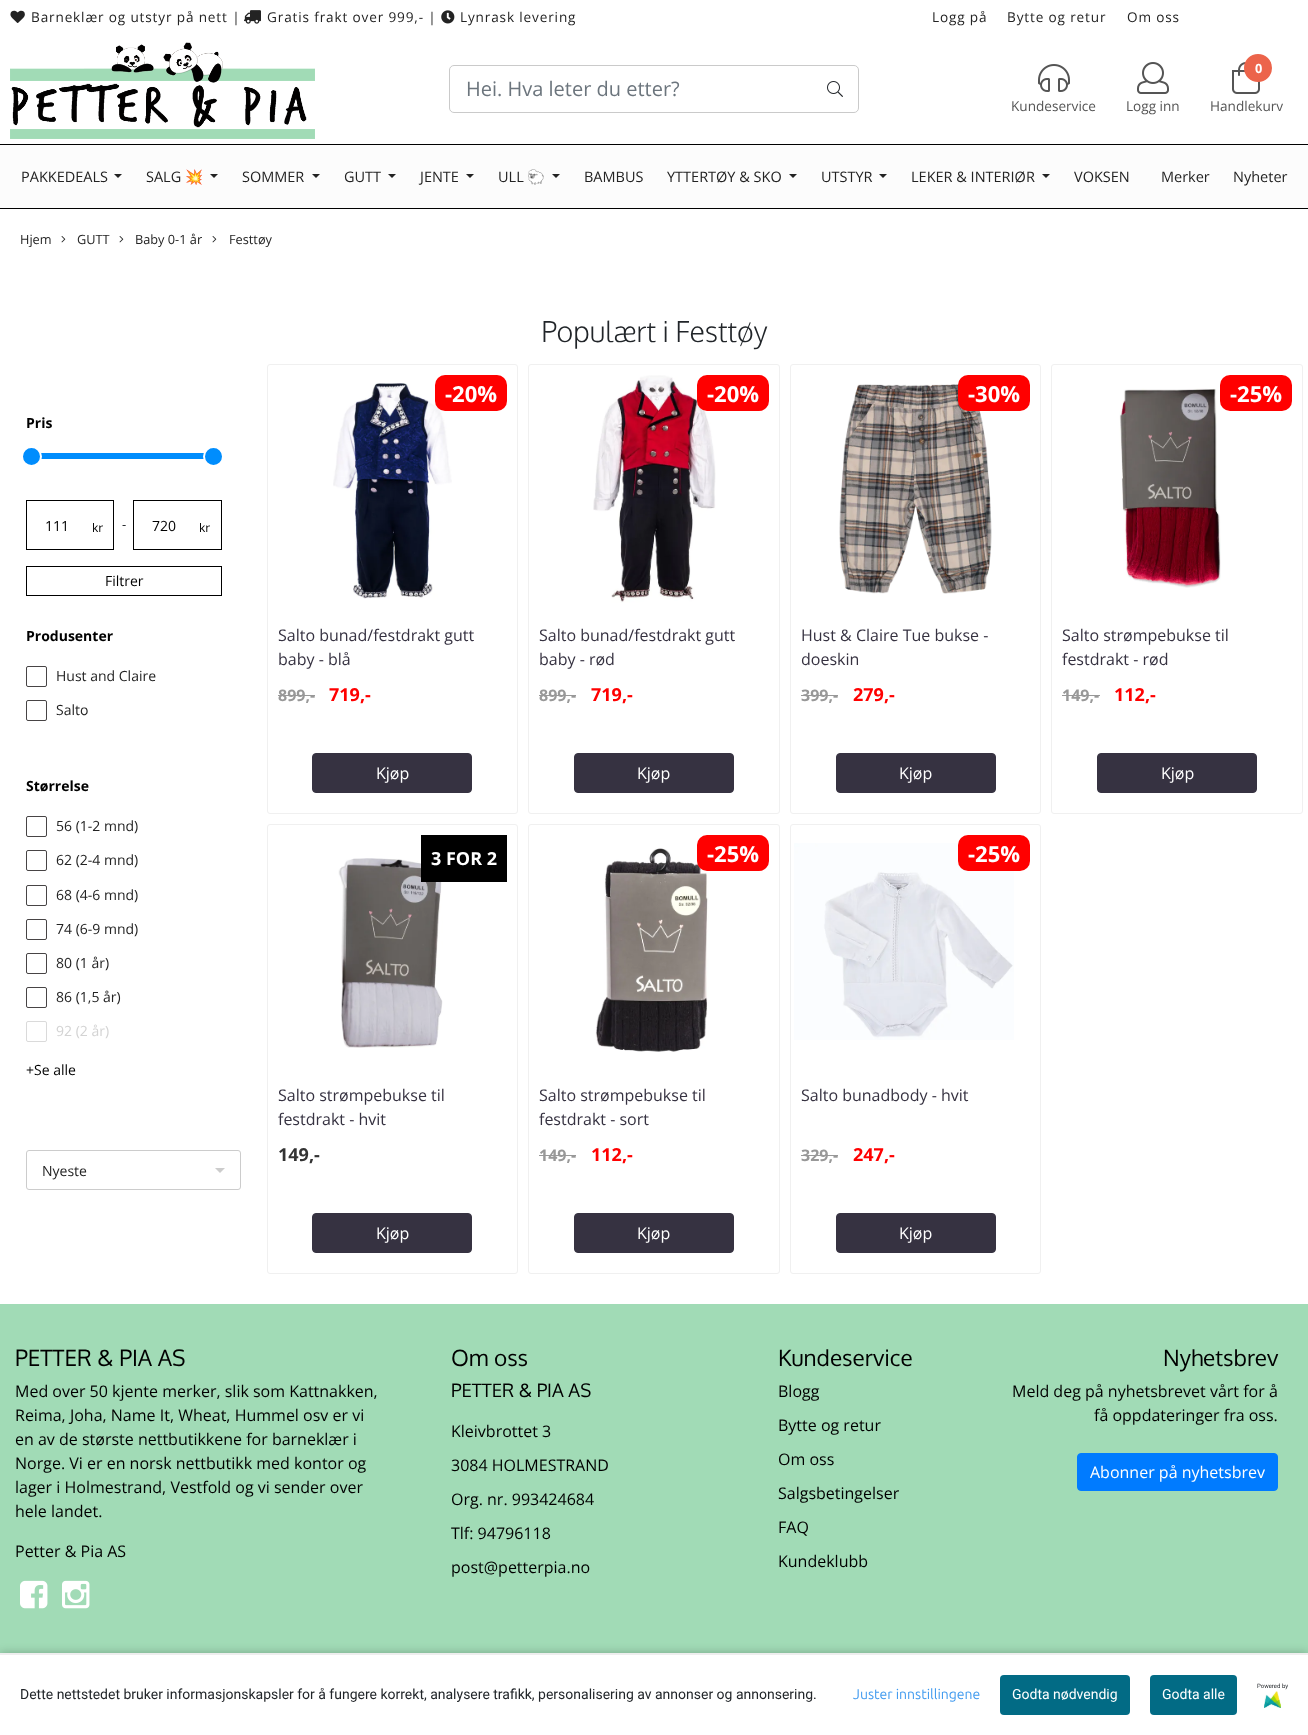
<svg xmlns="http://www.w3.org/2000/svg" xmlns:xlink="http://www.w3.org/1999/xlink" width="1308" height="1735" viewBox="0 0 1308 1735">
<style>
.cls-1{font:13.6px Open Sans;letter-spacing:0.85px;fill:#232323}
.cls-2{font:20px Open Sans;fill:#6c757d}
.cls-3{font:13.6px Open Sans;fill:#555555}
.cls-4{font:bold 12.75px Open Sans;fill:#ffffff}
.cls-5{font:14.5px Open Sans;fill:#232323}
.cls-6{font:14.5px Noto Color Emoji;fill:#232323}
.cls-7{font:12.75px Open Sans;fill:#232323}
.cls-8{font:300 28.75px Oxygen;fill:#212529}
.cls-9{font:bold 14px Open Sans;fill:#000000}
.cls-10{font:14px Open Sans;fill:#000000}
.cls-11{font:12px Open Sans;fill:#000000}
.cls-12{font:13px Open Sans;fill:#212529}
.cls-13{font:14px Open Sans;fill:#232323}
.cls-14{font:14px Open Sans;fill:#d3d3d3}
.cls-15{font:bold 22px Open Sans;fill:#ffffff}
.cls-16{font:16px Open Sans;fill:#363241}
.cls-17{font:bold 16px Open Sans;fill:#989898}
.cls-18{font:bold 18px Open Sans;fill:#ff0000}
.cls-19{font:16px Open Sans;fill:#ffffff}
.cls-20{font:bold 18px Open Sans;fill:#ffffff}
.cls-21{font:bold 18px Open Sans;fill:#333333}
.cls-22{font:22.5px Oxygen;fill:#000000}
.cls-23{font:16px Open Sans;fill:#000000}
.cls-24{font:18.5px Oxygen;fill:#000000}
.cls-25{font:14px Roboto;fill:#212529}
.cls-26{font:14px Ubuntu;fill:#409aef}
.cls-27{font:6px Roboto;fill:#212529}
.cls-28{font:14px Roboto;fill:#ffffff}
</style>
<rect width="100%" height="100%" fill="#ffffff"/>
<image xlink:href="image0.png" x="10" y="10" width="15" height="13"/>
<image xlink:href="image1.png" x="244" y="10" width="17" height="14"/>
<image xlink:href="image2.png" x="441" y="10" width="14" height="14"/>
<image xlink:href="image3.png" x="10" y="42" width="305" height="97"/>
<rect fill="none" stroke="#cacaca" x="449.5" y="65.5" width="409" height="47" rx="4.5"/>
<image xlink:href="image4.png" x="827" y="81" width="16" height="16"/>
<image xlink:href="image5.png" x="1038" y="64" width="32" height="28"/>
<image xlink:href="image6.png" x="1137" y="62" width="32" height="32"/>
<image xlink:href="image7.png" x="1232" y="62" width="28" height="32"/>
<circle fill="#ec644b" stroke="#ec644b" stroke-width="2" cx="1258" cy="68" r="13"/>
<rect fill="#fcfcfc" x="0" y="145" width="1308" height="63"/>
<rect fill="#010101" x="0" y="144" width="1308" height="1"/>
<rect fill="#010101" x="0" y="208" width="1308" height="1"/>
<path fill="#232323" d="M114 174H122L118 178Z"/>
<path fill="#232323" d="M210 174H218L214 178Z"/>
<path fill="#232323" d="M312 174H320L316 178Z"/>
<path fill="#232323" d="M388 174H396L392 178Z"/>
<path fill="#232323" d="M466 174H474L470 178Z"/>
<path fill="#232323" d="M552 174H560L556 178Z"/>
<path fill="#232323" d="M789 174H797L793 178Z"/>
<path fill="#232323" d="M879 174H887L883 178Z"/>
<path fill="#232323" d="M1042 174H1050L1046 178Z"/>
<image xlink:href="image8.png" x="61" y="236" width="5" height="7"/>
<image xlink:href="image8.png" x="119" y="236" width="5" height="7"/>
<image xlink:href="image8.png" x="212" y="236" width="5" height="7"/>
<rect fill="#008dfd" x="33" y="453" width="173" height="6"/>
<rect fill="none" stroke="#ffffff" stroke-width="2" x="32" y="452" width="184" height="8"/>
<circle fill="#008dfd" stroke="#ffffff" stroke-width="2" cx="31.5" cy="456.5" r="9.5"/>
<circle fill="#008dfd" stroke="#ffffff" stroke-width="2" cx="213.5" cy="456.5" r="9.5"/>
<rect fill="none" stroke="#000000" x="26.5" y="500.5" width="87" height="49"/>
<rect fill="none" stroke="#000000" x="133.5" y="500.5" width="88" height="49"/>
<rect fill="none" stroke="#000000" x="26.5" y="566.5" width="195" height="29"/>
<rect fill="none" stroke="#474445" x="26.5" y="666.5" width="20" height="20" rx="1.5"/>
<rect fill="none" stroke="#474445" x="26.5" y="700.5" width="20" height="20" rx="1.5"/>
<rect fill="none" stroke="#474445" x="26.5" y="816.5" width="20" height="20" rx="1.5"/>
<rect fill="none" stroke="#474445" x="26.5" y="850.5" width="20" height="20" rx="1.5"/>
<rect fill="none" stroke="#474445" x="26.5" y="885.5" width="20" height="20" rx="1.5"/>
<rect fill="none" stroke="#474445" x="26.5" y="919.5" width="20" height="20" rx="1.5"/>
<rect fill="none" stroke="#474445" x="26.5" y="953.5" width="20" height="20" rx="1.5"/>
<rect fill="none" stroke="#474445" x="26.5" y="987.5" width="20" height="20" rx="1.5"/>
<rect fill="none" stroke="#dadada" x="26.5" y="1021.5" width="20" height="20" rx="1.5"/>
<rect fill="none" stroke="#cccccc" x="26.5" y="1150.5" width="214" height="39" rx="2.5"/>
<path fill="#cccccc" d="M215 1168H225L220 1173Z"/>
<rect fill="none" stroke="#f0f0f0" x="267.5" y="364.5" width="250" height="449" rx="2.5"/>
<image xlink:href="image9.png" x="333" y="383" width="119" height="216"/>
<rect fill="#ff0000" x="435" y="375" width="72" height="36" rx="10"/>
<rect fill="#989898" x="278" y="695" width="37" height="1"/>
<rect fill="#363241" stroke="#363241" x="312.5" y="753.5" width="159" height="39" rx="3.5"/>
<rect fill="none" stroke="#f0f0f0" x="528.5" y="364.5" width="251" height="449" rx="2.5"/>
<image xlink:href="image10.png" x="593" y="375" width="123" height="228"/>
<rect fill="#ff0000" x="697" y="375" width="72" height="36" rx="10"/>
<rect fill="#989898" x="539" y="695" width="37" height="1"/>
<rect fill="#363241" stroke="#363241" x="574.5" y="753.5" width="159" height="39" rx="3.5"/>
<rect fill="none" stroke="#f0f0f0" x="790.5" y="364.5" width="250" height="449" rx="2.5"/>
<image xlink:href="image11.png" x="839" y="384" width="153" height="210"/>
<rect fill="#ff0000" x="958" y="375" width="72" height="36" rx="10"/>
<rect fill="#989898" x="801" y="695" width="37" height="1"/>
<rect fill="#363241" stroke="#363241" x="836.5" y="753.5" width="159" height="39" rx="3.5"/>
<rect fill="none" stroke="#f0f0f0" x="1051.5" y="364.5" width="251" height="449" rx="2.5"/>
<image xlink:href="image12.png" x="1119" y="388" width="102" height="200"/>
<rect fill="#ff0000" x="1220" y="375" width="72" height="36" rx="10"/>
<rect fill="#989898" x="1062" y="695" width="38" height="1"/>
<rect fill="#363241" stroke="#363241" x="1097.5" y="753.5" width="159" height="39" rx="3.5"/>
<rect fill="none" stroke="#f0f0f0" x="267.5" y="824.5" width="250" height="449" rx="2.5"/>
<image xlink:href="image13.png" x="338" y="858" width="105" height="190"/>
<rect fill="#000000" x="421" y="835" width="86" height="47"/>
<rect fill="#363241" stroke="#363241" x="312.5" y="1213.5" width="159" height="39" rx="3.5"/>
<rect fill="none" stroke="#f0f0f0" x="528.5" y="824.5" width="251" height="449" rx="2.5"/>
<image xlink:href="image14.png" x="595" y="848" width="114" height="204"/>
<rect fill="#ff0000" x="697" y="835" width="72" height="36" rx="10"/>
<rect fill="#989898" x="539" y="1155" width="37" height="1"/>
<rect fill="#363241" stroke="#363241" x="574.5" y="1213.5" width="159" height="39" rx="3.5"/>
<rect fill="none" stroke="#f0f0f0" x="790.5" y="824.5" width="250" height="449" rx="2.5"/>
<image xlink:href="image15.png" x="794" y="843" width="220" height="197"/>
<rect fill="#ff0000" x="958" y="835" width="72" height="36" rx="10"/>
<rect fill="#989898" x="801" y="1155" width="37" height="1"/>
<rect fill="#363241" stroke="#363241" x="836.5" y="1213.5" width="159" height="39" rx="3.5"/>
<rect fill="#a1dbb6" x="0" y="1304" width="1308" height="349"/>
<image xlink:href="image16.png" x="20" y="1580" width="28" height="29"/>
<image xlink:href="image17.png" x="62" y="1580" width="28" height="29"/>
<rect fill="#007bff" stroke="#007bff" x="1077.5" y="1453.5" width="200" height="37" rx="3.5"/>
<rect fill="#000000" fill-opacity="0.25" filter="blur(5px)" x="0" y="1653" width="1308" height="82"/>
<rect fill="#ffffff" x="0" y="1655" width="1308" height="80"/>
<rect fill="#eeeeee" x="0" y="1653" width="1308" height="2"/>
<image xlink:href="image18.png" x="1264" y="1691" width="17" height="17"/>
<rect fill="#026b85" x="1000" y="1675" width="130" height="40" rx="4"/>
<rect fill="#026b85" x="1150" y="1675" width="87" height="40" rx="4"/>
<text class="cls-1" x="31" y="22">Barneklær og utstyr på nett |</text>
<text class="cls-1" x="267" y="22">Gratis frakt over 999,- |</text>
<text class="cls-1" x="460" y="22">Lynrask levering</text>
<text class="cls-1" x="932" y="22">Logg på</text>
<text class="cls-1" x="1007" y="22">Bytte og retur</text>
<text class="cls-1" x="1127" y="22">Om oss</text>
<text class="cls-2" x="466" y="96">Hei. Hva leter du etter?</text>
<text class="cls-3" x="1011" y="111">Kundeservice</text>
<text class="cls-3" x="1126" y="111">Logg inn</text>
<text class="cls-4" x="1255" y="73">0</text>
<text class="cls-3" x="1210" y="111">Handlekurv</text>
<text class="cls-5" x="21" y="182">PAKKEDEALS</text>
<text class="cls-5" x="146" y="182">SALG</text>
<text class="cls-6" x="185" y="182">💥</text>
<text class="cls-5" x="242" y="182">SOMMER</text>
<text class="cls-5" x="344" y="182">GUTT</text>
<text class="cls-5" x="420" y="182">JENTE</text>
<text class="cls-5" x="498" y="182">ULL</text>
<text class="cls-6" x="527" y="182">🐑</text>
<text class="cls-5" x="584" y="182">BAMBUS</text>
<text class="cls-5" x="667" y="182">YTTERTØY &amp; SKO</text>
<text class="cls-5" x="821" y="182">UTSTYR</text>
<text class="cls-5" x="911" y="182">LEKER &amp; INTERIØR</text>
<text class="cls-5" x="1074" y="182">VOKSEN</text>
<text class="cls-5" x="1161" y="182">Merker</text>
<text class="cls-5" x="1233" y="182">Nyheter</text>
<text class="cls-7" x="20" y="244">Hjem</text>
<text class="cls-7" x="77" y="244">GUTT</text>
<text class="cls-7" x="135" y="244">Baby 0-1 år</text>
<text class="cls-7" x="229" y="244">Festtøy</text>
<text class="cls-8" x="541" y="342">Populært i Festtøy</text>
<text class="cls-9" x="26" y="428">Pris</text>
<text class="cls-10" x="45" y="531">111</text>
<text class="cls-11" x="92" y="532">kr</text>
<text class="cls-12" x="122" y="529">-</text>
<text class="cls-10" x="152" y="531">720</text>
<text class="cls-11" x="199" y="532">kr</text>
<text class="cls-10" x="105" y="586">Filtrer</text>
<text class="cls-9" x="26" y="641">Produsenter</text>
<text class="cls-13" x="56" y="681">Hust and Claire</text>
<text class="cls-13" x="56" y="715">Salto</text>
<text class="cls-9" x="26" y="791">Størrelse</text>
<text class="cls-13" x="56" y="831">56 (1-2 mnd)</text>
<text class="cls-13" x="56" y="865">62 (2-4 mnd)</text>
<text class="cls-13" x="56" y="900">68 (4-6 mnd)</text>
<text class="cls-13" x="56" y="934">74 (6-9 mnd)</text>
<text class="cls-13" x="56" y="968">80 (1 år)</text>
<text class="cls-13" x="56" y="1002">86 (1,5 år)</text>
<text class="cls-14" x="56" y="1036">92 (2 år)</text>
<text class="cls-10" x="26" y="1075">+Se alle</text>
<text class="cls-13" x="42" y="1176">Nyeste</text>
<text class="cls-15" x="445" y="402">-20%</text>
<text class="cls-16"><tspan x="278" y="641">Salto bunad/festdrakt gutt</tspan><tspan x="278" y="665">baby - blå</tspan></text>
<text class="cls-17" x="278" y="701">899,-</text>
<text class="cls-18" x="329" y="701">719,-</text>
<text class="cls-19" x="376" y="779">Kjøp</text>
<text class="cls-15" x="707" y="402">-20%</text>
<text class="cls-16"><tspan x="539" y="641">Salto bunad/festdrakt gutt</tspan><tspan x="539" y="665">baby - rød</tspan></text>
<text class="cls-17" x="539" y="701">899,-</text>
<text class="cls-18" x="591" y="701">719,-</text>
<text class="cls-19" x="637" y="779">Kjøp</text>
<text class="cls-15" x="968" y="402">-30%</text>
<text class="cls-16"><tspan x="801" y="641">Hust &amp; Claire Tue bukse -</tspan><tspan x="801" y="665">doeskin</tspan></text>
<text class="cls-17" x="801" y="701">399,-</text>
<text class="cls-18" x="853" y="701">279,-</text>
<text class="cls-19" x="899" y="779">Kjøp</text>
<text class="cls-15" x="1230" y="402">-25%</text>
<text class="cls-16"><tspan x="1062" y="641">Salto strømpebukse til</tspan><tspan x="1062" y="665">festdrakt - rød</tspan></text>
<text class="cls-17" x="1062" y="701">149,-</text>
<text class="cls-18" x="1114" y="701">112,-</text>
<text class="cls-19" x="1161" y="779">Kjøp</text>
<text class="cls-20" x="431" y="865">3 FOR 2</text>
<text class="cls-16"><tspan x="278" y="1101">Salto strømpebukse til</tspan><tspan x="278" y="1125">festdrakt - hvit</tspan></text>
<text class="cls-21" x="278" y="1161">149,-</text>
<text class="cls-19" x="376" y="1239">Kjøp</text>
<text class="cls-15" x="707" y="862">-25%</text>
<text class="cls-16"><tspan x="539" y="1101">Salto strømpebukse til</tspan><tspan x="539" y="1125">festdrakt - sort</tspan></text>
<text class="cls-17" x="539" y="1161">149,-</text>
<text class="cls-18" x="591" y="1161">112,-</text>
<text class="cls-19" x="637" y="1239">Kjøp</text>
<text class="cls-15" x="968" y="862">-25%</text>
<text class="cls-16" x="801" y="1101">Salto bunadbody - hvit</text>
<text class="cls-17" x="801" y="1161">329,-</text>
<text class="cls-18" x="853" y="1161">247,-</text>
<text class="cls-19" x="899" y="1239">Kjøp</text>
<text class="cls-22" x="15" y="1366">PETTER &amp; PIA AS</text>
<text class="cls-23"><tspan x="15" y="1397">Med over 50 kjente merker, slik som Kattnakken,</tspan><tspan x="15" y="1421">Reima, Joha, Name It, Wheat, Hummel osv er vi</tspan><tspan x="15" y="1445">en av de største nettbutikkene for barneklær i</tspan><tspan x="15" y="1469">Norge. Vi er en norsk nettbutikk med kontor og</tspan><tspan x="15" y="1493">lager i Holmestrand, Vestfold og vi sender over</tspan><tspan x="15" y="1517">hele landet.</tspan></text>
<text class="cls-23" x="15" y="1557">Petter &amp; Pia AS</text>
<text class="cls-22" x="451" y="1366">Om oss</text>
<text class="cls-24" x="451" y="1397">PETTER &amp; PIA AS</text>
<text class="cls-23" x="451" y="1437">Kleivbrottet 3</text>
<text class="cls-23" x="451" y="1471">3084 HOLMESTRAND</text>
<text class="cls-23" x="451" y="1505">Org. nr. 993424684</text>
<text class="cls-23" x="451" y="1539">Tlf: 94796118</text>
<text class="cls-23" x="451" y="1573">post@petterpia.no</text>
<text class="cls-22" x="778" y="1366">Kundeservice</text>
<text class="cls-23" x="778" y="1397">Blogg</text>
<text class="cls-23" x="778" y="1431">Bytte og retur</text>
<text class="cls-23" x="778" y="1465">Om oss</text>
<text class="cls-23" x="778" y="1499">Salgsbetingelser</text>
<text class="cls-23" x="778" y="1533">FAQ</text>
<text class="cls-23" x="778" y="1567">Kundeklubb</text>
<text class="cls-22" x="1163" y="1366">Nyhetsbrev</text>
<text class="cls-23" x="1012" y="1397">Meld deg på nyhetsbrevet vårt for å</text>
<text class="cls-23" x="1094" y="1421">få oppdateringer fra oss.</text>
<text class="cls-19" x="1090" y="1478">Abonner på nyhetsbrev</text>
<text class="cls-25" x="20" y="1699">Dette nettstedet bruker informasjonskapsler for å fungere korrekt, analysere trafikk, personalisering av annonser og annonsering.</text>
<text class="cls-26" x="853" y="1699">Juster innstillingene</text>
<text class="cls-27" x="1257" y="1688">Powered by</text>
<text class="cls-28" x="1012" y="1699">Godta nødvendig</text>
<text class="cls-28" x="1162" y="1699">Godta alle</text>
</svg>
